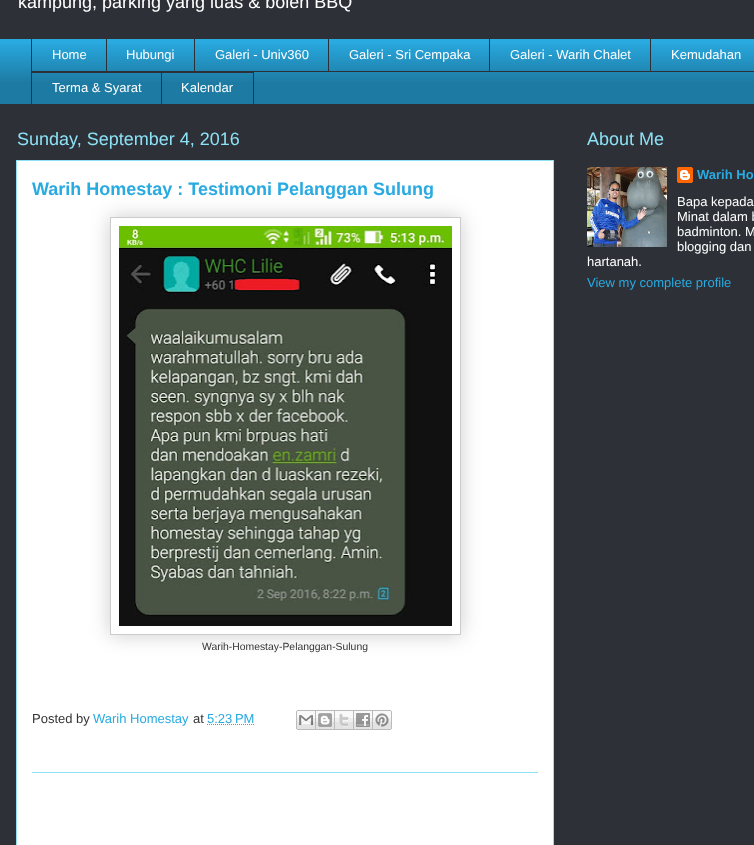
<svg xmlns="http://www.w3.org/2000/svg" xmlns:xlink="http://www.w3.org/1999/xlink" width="754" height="845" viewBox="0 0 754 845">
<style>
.cls-1{font:18px Liberation Sans;fill:#ffffff}
.cls-2{font:13px Liberation Sans;fill:#ffffff}
.cls-3{font:18px Liberation Sans;fill:#8ce1f5}
.cls-4{font:bold 18px Liberation Sans;fill:#29aae1}
.cls-5{font:10.4px Liberation Sans;fill:#333333}
.cls-6{font:13px Liberation Sans;fill:#333333}
.cls-7{font:13px Liberation Sans;fill:#29aae1}
.cls-8{font:bold 13px Liberation Sans;fill:#29aae1}
</style>
<defs>
<clipPath id="clip1"><path d="M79 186H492V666H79ZM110 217H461V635H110Z" clip-rule="evenodd"/></clipPath>
</defs>
<rect width="100%" height="100%" fill="#2d3037"/>
<rect fill="#29aae1" x="0" y="39" width="754" height="65"/>
<image xlink:href="image0.png" x="0" y="44" width="754" height="60"/>
<rect fill="#2d3037" x="31" y="71" width="723" height="1"/>
<rect fill="#2d3037" x="31" y="38" width="1" height="34"/>
<rect fill="#2d3037" x="106" y="38" width="1" height="34"/>
<rect fill="#2d3037" x="194" y="38" width="1" height="34"/>
<rect fill="#2d3037" x="328" y="38" width="1" height="34"/>
<rect fill="#2d3037" x="489" y="38" width="1" height="34"/>
<rect fill="#2d3037" x="650" y="38" width="1" height="34"/>
<rect fill="#2d3037" x="31" y="72" width="130" height="1"/>
<rect fill="#2d3037" x="31" y="72" width="1" height="33"/>
<rect fill="none" stroke="#2d3037" x="161.5" y="72.5" width="92" height="32"/>
<rect fill="#ffffff" stroke="#8ce1f5" x="16.5" y="160.5" width="537" height="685"/>
<g clip-path="url(#clip1)">
<rect fill="#000000" fill-opacity="0.2" filter="blur(10px)" x="110" y="217" width="351" height="418"/>
</g>
<rect fill="none" stroke="#cccccc" x="110.5" y="217.5" width="350" height="417"/>
<image xlink:href="image1.png" x="119" y="226" width="333" height="400"/>
<path fill="none" stroke="#29aae1" stroke-dasharray="1 1" d="M207 724.5H254.5"/>
<image xlink:href="image2.png" x="296" y="710" width="20" height="20"/>
<image xlink:href="image3.png" x="316" y="710" width="19" height="20"/>
<image xlink:href="image4.png" x="335" y="710" width="19" height="20"/>
<image xlink:href="image5.png" x="354" y="710" width="19" height="20"/>
<image xlink:href="image6.png" x="373" y="710" width="19" height="20"/>
<rect fill="#8ce1f5" x="32" y="772" width="506" height="1"/>
<image xlink:href="image7.png" x="587" y="167" width="80" height="80"/>
<image xlink:href="image8.png" x="677" y="167" width="16" height="16"/>
<text class="cls-1" x="18" y="8">kampung, parking yang luas &amp; boleh BBQ</text>
<text class="cls-2" x="52" y="59">Home</text>
<text class="cls-2" x="126" y="59">Hubungi</text>
<text class="cls-2" x="215" y="59">Galeri - Univ360</text>
<text class="cls-2" x="349" y="59">Galeri - Sri Cempaka</text>
<text class="cls-2" x="510" y="59">Galeri - Warih Chalet</text>
<text class="cls-2" x="671" y="59">Kemudahan</text>
<text class="cls-2" x="52" y="92">Terma &amp; Syarat</text>
<text class="cls-2" x="181" y="92">Kalendar</text>
<text class="cls-3" x="17" y="145">Sunday, September 4, 2016</text>
<text class="cls-4" x="32" y="195">Warih Homestay : Testimoni Pelanggan Sulung</text>
<text class="cls-5" x="202" y="650">Warih-Homestay-Pelanggan-Sulung</text>
<text class="cls-6" x="32" y="723">Posted by</text>
<text class="cls-7" x="93" y="723">Warih Homestay</text>
<text class="cls-6" x="193" y="723">at</text>
<text class="cls-7" x="207" y="723">5:23 PM</text>
<text class="cls-3" x="587" y="145">About Me</text>
<text class="cls-8" x="697" y="179">Warih Ho</text>
<text class="cls-2"><tspan x="677" y="206">Bapa kepada</tspan><tspan x="677" y="221">Minat dalam b</tspan><tspan x="677" y="236">badminton. M</tspan><tspan x="677" y="251">blogging dan</tspan></text>
<text class="cls-2" x="587" y="266">hartanah.</text>
<text class="cls-7" x="587" y="287">View my complete profile</text>
</svg>
